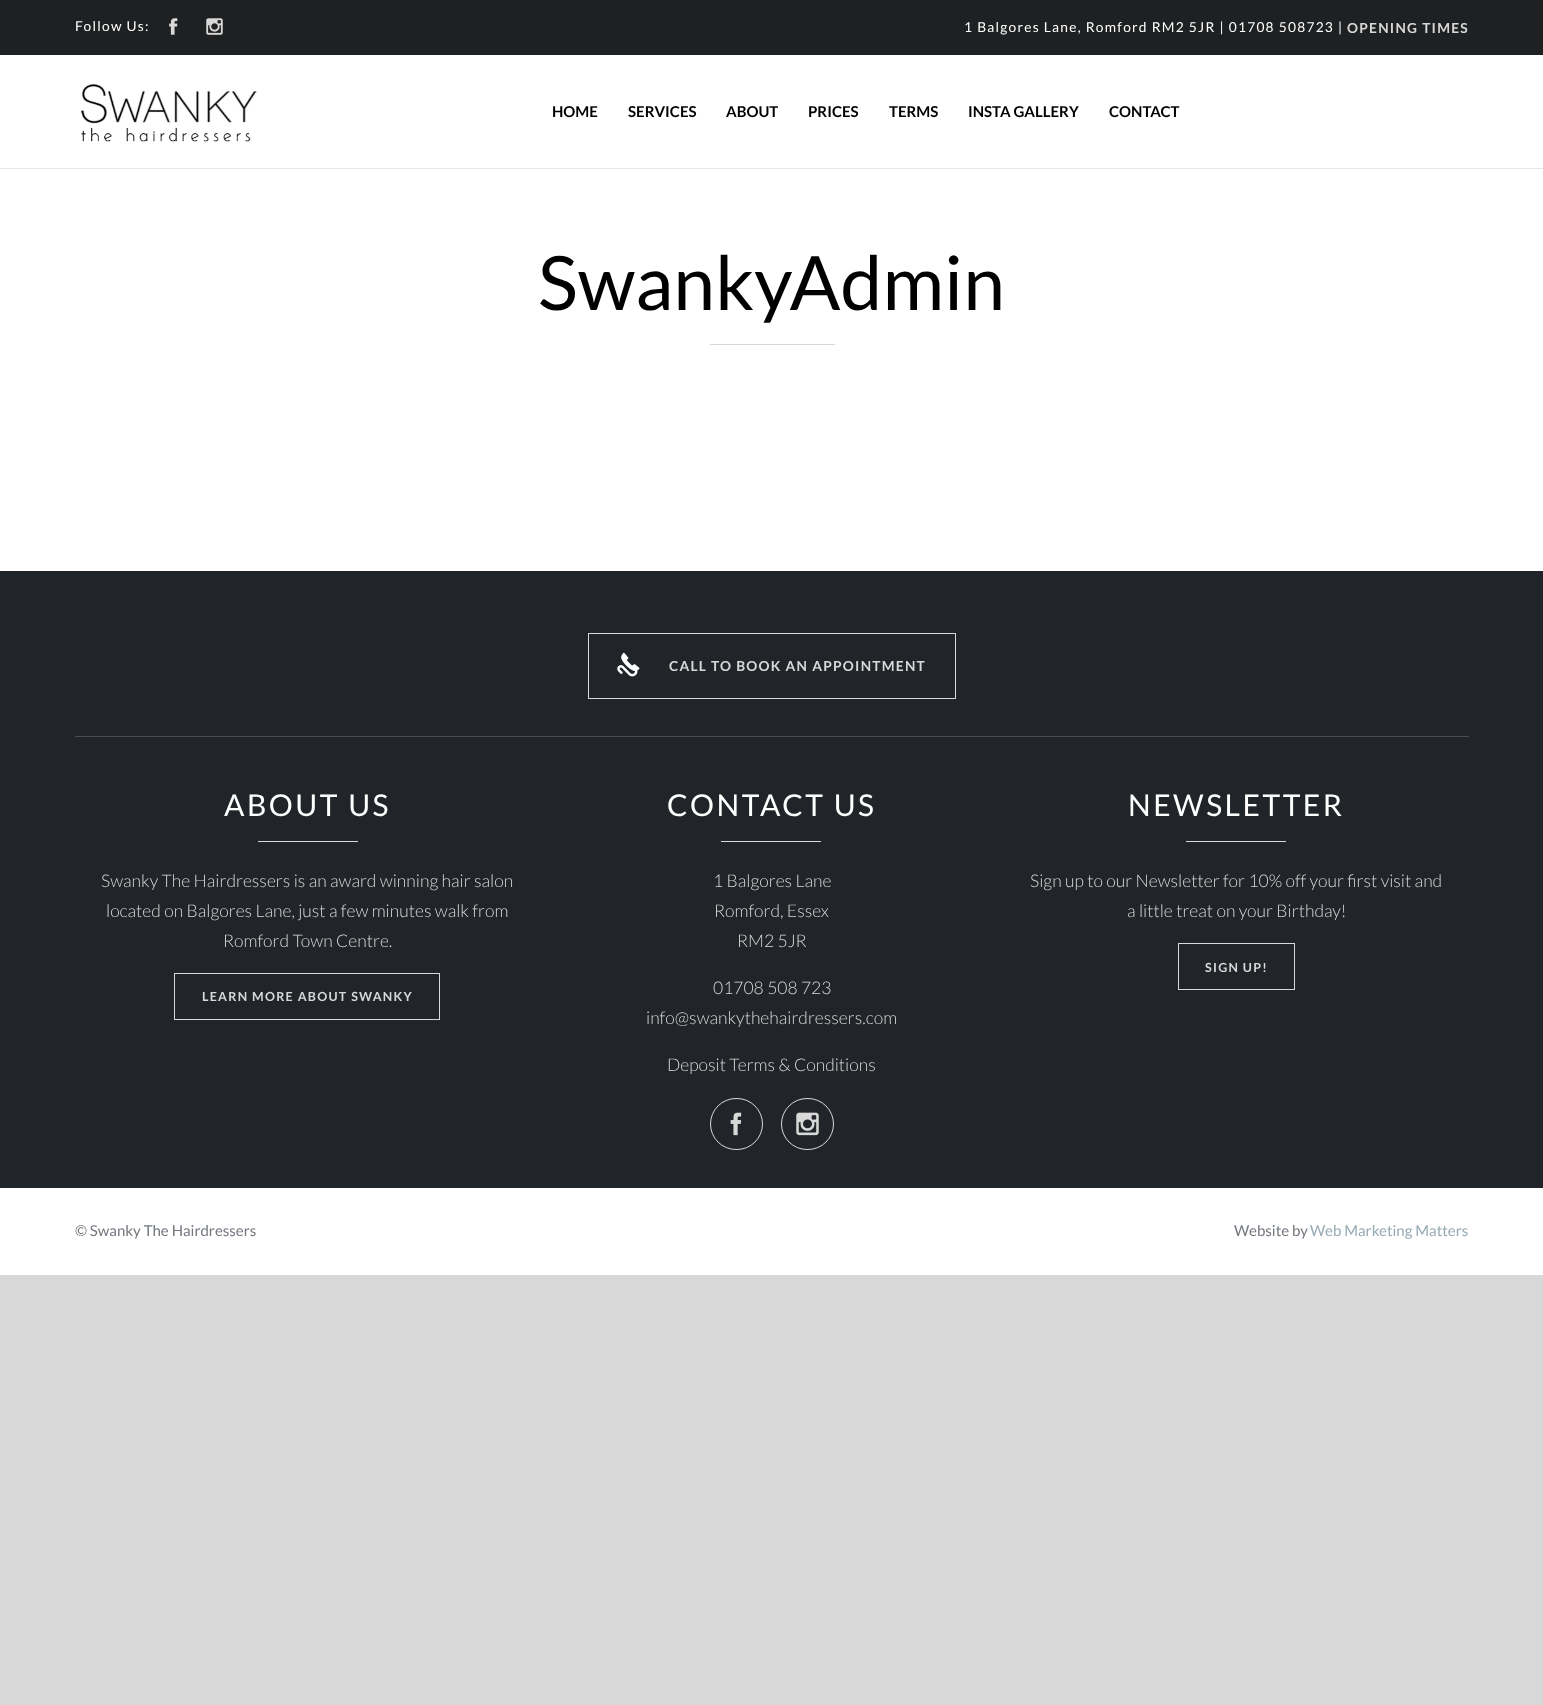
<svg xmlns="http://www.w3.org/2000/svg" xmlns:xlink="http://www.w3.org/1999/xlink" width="1543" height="1705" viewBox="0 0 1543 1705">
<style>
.cls-1{font:13.75px Lato;letter-spacing:1.25px;fill:#ffffff}
.cls-2{font:bold 13.75px Lato;letter-spacing:1.25px;fill:#d8d8d8}
.cls-3{font:bold 15px Lato;fill:#000000}
.cls-4{font:75px Lato;fill:#000000}
.cls-5{font:30px Lato;letter-spacing:2.5px;fill:#ffffff}
.cls-6{font:300 17.5px Lato;fill:#d8d8d8}
.cls-7{font:bold 12.5px Lato;letter-spacing:1.25px;fill:#d8d8d8}
.cls-8{font:15px Lato;fill:#72777e}
.cls-9{font:15px Lato;fill:#97aab4}
</style>
<rect width="100%" height="100%" fill="#d8d8d8"/>
<rect fill="#e6e6e6" x="0" y="168" width="1543" height="1"/>
<rect fill="#1e2022" x="0" y="0" width="1543" height="55"/>
<image xlink:href="image0.png" x="169" y="18" width="9" height="17"/>
<image xlink:href="image1.png" x="206" y="18" width="17" height="17"/>
<rect fill="#ffffff" x="0" y="55" width="1543" height="113"/>
<image xlink:href="image2.png" x="80" y="83" width="177" height="59"/>
<rect fill="#ffffff" x="0" y="169" width="1543" height="402"/>
<rect fill="#d8d8d8" x="710" y="344" width="125" height="1"/>
<rect fill="#212529" x="0" y="571" width="1543" height="617"/>
<rect fill="#4a4d50" x="75" y="736" width="1394" height="1"/>
<rect fill="none" stroke="#d8d8d8" x="588.5" y="633.5" width="367" height="65"/>
<image xlink:href="image3.png" x="617" y="652" width="23" height="25"/>
<rect fill="#d8d8d8" x="258" y="841" width="100" height="1"/>
<rect fill="none" stroke="#d8d8d8" x="174.5" y="973.5" width="265" height="46"/>
<rect fill="#d8d8d8" x="721" y="841" width="100" height="1"/>
<rect fill="none" stroke="#d8d8d8" x="710.5" y="1098.5" width="52" height="51" rx="25.5"/>
<image xlink:href="image4.png" x="730" y="1112" width="12" height="24"/>
<rect fill="none" stroke="#d8d8d8" x="781.5" y="1098.5" width="52" height="51" rx="25.5"/>
<image xlink:href="image5.png" x="796" y="1112" width="23" height="24"/>
<rect fill="#d8d8d8" x="1186" y="841" width="100" height="1"/>
<rect fill="none" stroke="#d8d8d8" x="1178.5" y="943.5" width="116" height="46"/>
<rect fill="#ffffff" x="0" y="1188" width="1543" height="87"/>
<text class="cls-1" x="75" y="31">Follow Us:</text>
<text class="cls-1" x="964" y="32">1 Balgores Lane, Romford RM2 5JR | 01708 508723 |</text>
<text class="cls-2" x="1347" y="33">OPENING TIMES</text>
<text class="cls-3" x="552" y="117">HOME</text>
<text class="cls-3" x="628" y="117">SERVICES</text>
<text class="cls-3" x="726" y="117">ABOUT</text>
<text class="cls-3" x="808" y="117">PRICES</text>
<text class="cls-3" x="889" y="117">TERMS</text>
<text class="cls-3" x="968" y="117">INSTA GALLERY</text>
<text class="cls-3" x="1109" y="117">CONTACT</text>
<text class="cls-4" x="538" y="310">SwankyAdmin</text>
<text class="cls-2" x="669" y="671">CALL TO BOOK AN APPOINTMENT</text>
<text class="cls-5" x="224" y="816">ABOUT US</text>
<text class="cls-6" x="101" y="887">Swanky The Hairdressers is an award winning hair salon</text>
<text class="cls-6" x="106" y="917">located on Balgores Lane, just a few minutes walk from</text>
<text class="cls-6" x="223" y="947">Romford Town Centre.</text>
<text class="cls-7" x="202" y="1001">LEARN MORE ABOUT SWANKY</text>
<text class="cls-5" x="667" y="816">CONTACT US</text>
<text class="cls-6" x="713" y="887">1 Balgores Lane</text>
<text class="cls-6" x="714" y="917">Romford, Essex</text>
<text class="cls-6" x="737" y="947">RM2 5JR</text>
<text class="cls-6" x="713" y="994">01708 508 723</text>
<text class="cls-6" x="646" y="1024">info@swankythehairdressers.com</text>
<text class="cls-6" x="667" y="1071">Deposit Terms &amp; Conditions</text>
<text class="cls-5" x="1128" y="816">NEWSLETTER</text>
<text class="cls-6" x="1030" y="887">Sign up to our Newsletter for 10% off your first visit and</text>
<text class="cls-6" x="1127" y="917">a little treat on your Birthday!</text>
<text class="cls-7" x="1205" y="972">SIGN UP!</text>
<text class="cls-8" x="75" y="1236">© Swanky The Hairdressers</text>
<text class="cls-8" x="1234" y="1236">Website by</text>
<text class="cls-9" x="1310" y="1236">Web Marketing Matters</text>
</svg>
